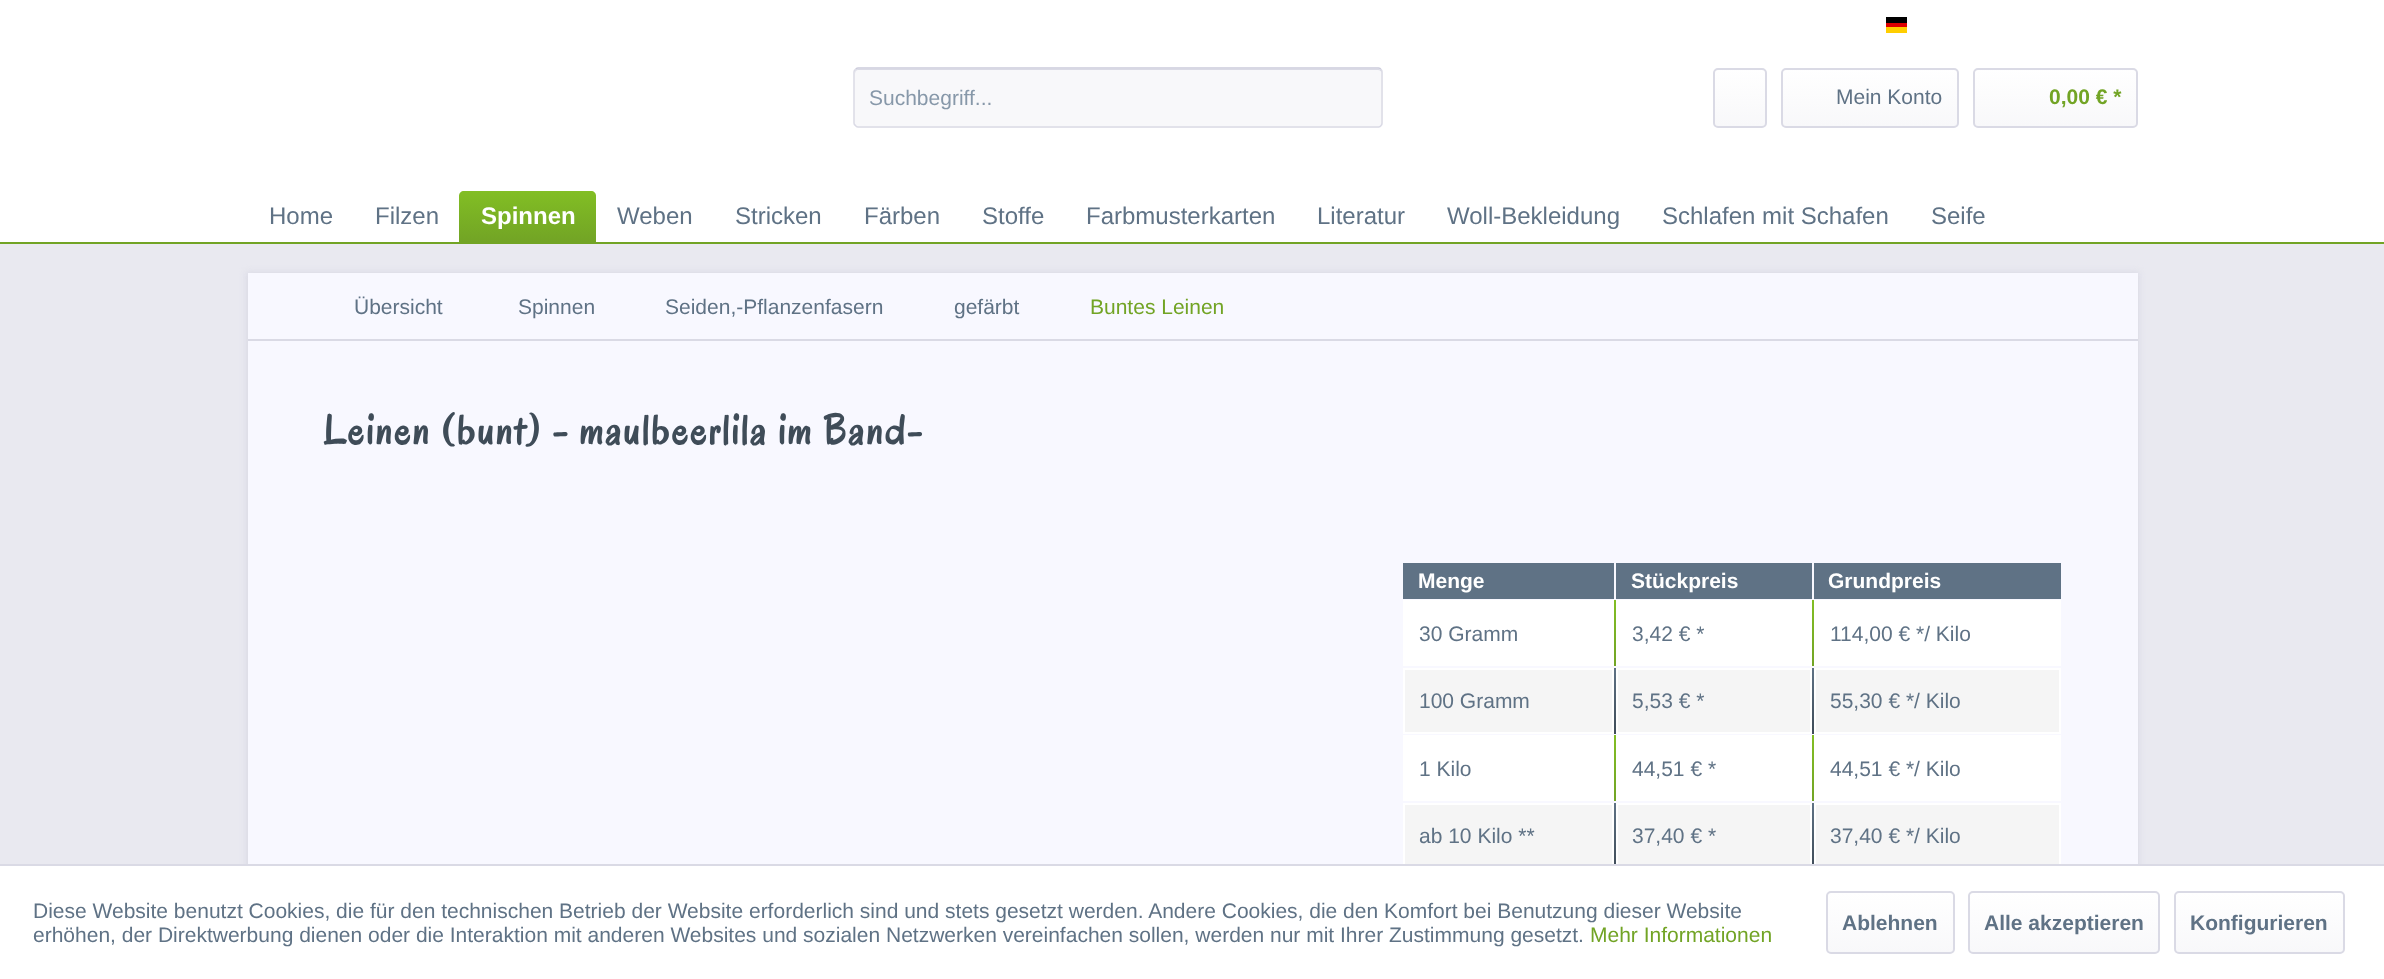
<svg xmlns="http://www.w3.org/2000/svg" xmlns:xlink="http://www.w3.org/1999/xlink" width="2384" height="979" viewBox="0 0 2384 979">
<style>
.cls-1{font:21px Liberation Sans;fill:#8798a9}
.cls-2{font:21px Liberation Sans;fill:#5f7285}
.cls-3{font:bold 21px Liberation Sans;fill:#72a425}
.cls-4{font:24px Liberation Sans;fill:#5f7285}
.cls-5{font:bold 24px Liberation Sans;fill:#ffffff}
.cls-6{font:21px Liberation Sans;fill:#72a425}
.cls-7{font:bold 42px Oregano;letter-spacing:2.25px;fill:#3f4c58}
.cls-8{font:bold 21px Liberation Sans;fill:#ffffff}
.cls-9{font:bold 21px Liberation Sans;fill:#5f7285}
</style>
<defs>
<linearGradient id="g1" gradientUnits="userSpaceOnUse" x1="1740" y1="69" x2="1740" y2="126"><stop offset="0" stop-color="#ffffff"/><stop offset="1" stop-color="#f8f8fa"/></linearGradient>
<linearGradient id="g2" gradientUnits="userSpaceOnUse" x1="1870" y1="69" x2="1870" y2="126"><stop offset="0" stop-color="#ffffff"/><stop offset="1" stop-color="#f8f8fa"/></linearGradient>
<linearGradient id="g3" gradientUnits="userSpaceOnUse" x1="2055" y1="69" x2="2055" y2="126"><stop offset="0" stop-color="#ffffff"/><stop offset="1" stop-color="#f8f8fa"/></linearGradient>
<linearGradient id="g4" gradientUnits="userSpaceOnUse" x1="527" y1="191" x2="527" y2="242"><stop offset="0" stop-color="#82be24"/><stop offset="1" stop-color="#72a425"/></linearGradient>
<linearGradient id="g5" gradientUnits="userSpaceOnUse" x1="1732" y1="600" x2="1732" y2="666"><stop offset="0" stop-color="#82be24"/><stop offset="1" stop-color="#72a425"/></linearGradient>
<linearGradient id="g6" gradientUnits="userSpaceOnUse" x1="1732" y1="668" x2="1732" y2="734"><stop offset="0" stop-color="#5f7285"/><stop offset="1" stop-color="#3f4c58"/></linearGradient>
<linearGradient id="g7" gradientUnits="userSpaceOnUse" x1="1732" y1="735" x2="1732" y2="801"><stop offset="0" stop-color="#82be24"/><stop offset="1" stop-color="#72a425"/></linearGradient>
<linearGradient id="g8" gradientUnits="userSpaceOnUse" x1="1732" y1="803" x2="1732" y2="869"><stop offset="0" stop-color="#5f7285"/><stop offset="1" stop-color="#3f4c58"/></linearGradient>
<linearGradient id="g9" gradientUnits="userSpaceOnUse" x1="1890" y1="893" x2="1890" y2="953"><stop offset="0" stop-color="#ffffff"/><stop offset="1" stop-color="#f8f8fa"/></linearGradient>
<linearGradient id="g10" gradientUnits="userSpaceOnUse" x1="2064" y1="893" x2="2064" y2="953"><stop offset="0" stop-color="#ffffff"/><stop offset="1" stop-color="#f8f8fa"/></linearGradient>
<linearGradient id="g11" gradientUnits="userSpaceOnUse" x1="2259" y1="893" x2="2259" y2="953"><stop offset="0" stop-color="#ffffff"/><stop offset="1" stop-color="#f8f8fa"/></linearGradient>
</defs>
<rect width="100%" height="100%" fill="#e9e9f0"/>
<rect fill="#ffffff" x="0" y="0" width="2384" height="242"/>
<rect fill="#000000" x="1886" y="17" width="21" height="6"/>
<rect fill="#dd0000" x="1886" y="23" width="21" height="4"/>
<rect fill="#ffce00" x="1886" y="27" width="21" height="6"/>
<rect fill="#f8f8fa" x="854" y="68" width="529" height="60" rx="5"/>
<path fill="#dadae5" d="M858 70H1378C1380 70 1382 72 1382 74L1381 70L1379 69H858C855 69 855 72 855 74C855 72 856 70 858 70Z"/>
<path fill="none" stroke="#cbcbdb" stroke-width="1.5" d="M855.5 69.5C856 68.5 857 68 858 68H1378.5C1379.5 68 1380.5 68.5 1381 69.5"/>
<path fill="none" stroke="#dadae5" stroke-width="1.5" d="M1381 69.5C1382 70 1382 71 1382 72V123C1382 124 1382 125 1381 125.5C1380.5 126.5 1379.5 127 1378.5 127H858C857 127 856 126.5 855.5 125.5C854.5 125 854 124 854 123V72C854 71 854.5 70 855.5 69.5"/>
<rect fill="url(#g1)" x="1715" y="69" width="51" height="57" rx="3"/>
<rect fill="none" stroke="#dadae5" stroke-width="2" x="1714" y="69" width="52" height="58" rx="4"/>
<rect fill="url(#g2)" x="1782" y="69" width="176" height="57" rx="3"/>
<rect fill="none" stroke="#dadae5" stroke-width="2" x="1782" y="69" width="176" height="58" rx="4"/>
<rect fill="url(#g3)" x="1974" y="69" width="162" height="57" rx="3"/>
<rect fill="none" stroke="#dadae5" stroke-width="2" x="1974" y="69" width="163" height="58" rx="4"/>
<rect fill="#72a425" x="0" y="242" width="2384" height="2"/>
<path fill="url(#g4)" d="M464 191H591C594 191 596 193 596 196V242H459V196C459 193 461 191 464 191Z"/>
<rect fill="#dadae5" filter="blur(3px)" x="246" y="272" width="1893" height="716"/>
<rect fill="#f8f8ff" x="248" y="273" width="1890" height="591"/>
<rect fill="#dadae5" x="248" y="339" width="1890" height="2"/>
<rect fill="#5f7285" x="1403" y="563" width="211" height="36"/>
<rect fill="#5f7285" x="1616" y="563" width="196" height="36"/>
<rect fill="#5f7285" x="1814" y="563" width="247" height="36"/>
<rect fill="url(#g5)" x="1614" y="600" width="200" height="66"/>
<rect fill="#ffffff" x="1403" y="600" width="211" height="66"/>
<rect fill="#ffffff" x="1616" y="600" width="196" height="66"/>
<rect fill="#ffffff" x="1814" y="600" width="247" height="66"/>
<rect fill="url(#g6)" x="1614" y="668" width="200" height="66"/>
<rect fill="#f5f5f5" stroke="#ffffff" stroke-width="2" x="1404" y="669" width="209" height="64"/>
<rect fill="#f5f5f5" stroke="#ffffff" stroke-width="2" x="1617" y="669" width="194" height="64"/>
<rect fill="#f5f5f5" stroke="#ffffff" stroke-width="2" x="1815" y="669" width="245" height="64"/>
<rect fill="url(#g7)" x="1614" y="735" width="200" height="66"/>
<rect fill="#ffffff" x="1403" y="735" width="211" height="66"/>
<rect fill="#ffffff" x="1616" y="735" width="196" height="66"/>
<rect fill="#ffffff" x="1814" y="735" width="247" height="66"/>
<rect fill="url(#g8)" x="1614" y="803" width="200" height="61"/>
<rect fill="#f5f5f5" x="1405" y="805" width="207" height="59"/>
<rect fill="none" stroke="#ffffff" stroke-width="2" x="1404" y="804" width="209" height="64"/>
<rect fill="#f5f5f5" x="1618" y="805" width="192" height="59"/>
<rect fill="none" stroke="#ffffff" stroke-width="2" x="1617" y="804" width="194" height="64"/>
<rect fill="#f5f5f5" x="1816" y="805" width="243" height="59"/>
<rect fill="none" stroke="#ffffff" stroke-width="2" x="1815" y="804" width="245" height="64"/>
<rect fill="#ffffff" x="0" y="866" width="2384" height="113"/>
<rect fill="#dadae5" x="0" y="864" width="2384" height="2"/>
<rect fill="url(#g9)" x="1827" y="893" width="126" height="60" rx="3"/>
<rect fill="none" stroke="#dadae5" stroke-width="2" x="1827" y="892" width="127" height="61" rx="4"/>
<rect fill="url(#g10)" x="1970" y="893" width="189" height="60" rx="3"/>
<rect fill="none" stroke="#dadae5" stroke-width="2" x="1969" y="892" width="190" height="61" rx="4"/>
<rect fill="url(#g11)" x="2175" y="893" width="168" height="60" rx="3"/>
<rect fill="none" stroke="#dadae5" stroke-width="2" x="2175" y="892" width="169" height="61" rx="4"/>
<text class="cls-1" x="869" y="105">Suchbegriff...</text>
<text class="cls-2" x="1836" y="104">Mein Konto</text>
<text class="cls-3" x="2049" y="104">0,00 € *</text>
<text class="cls-4" x="269" y="224">Home</text>
<text class="cls-4" x="375" y="224">Filzen</text>
<text class="cls-5" x="481" y="224">Spinnen</text>
<text class="cls-4" x="617" y="224">Weben</text>
<text class="cls-4" x="735" y="224">Stricken</text>
<text class="cls-4" x="864" y="224">Färben</text>
<text class="cls-4" x="982" y="224">Stoffe</text>
<text class="cls-4" x="1086" y="224">Farbmusterkarten</text>
<text class="cls-4" x="1317" y="224">Literatur</text>
<text class="cls-4" x="1447" y="224">Woll-Bekleidung</text>
<text class="cls-4" x="1662" y="224">Schlafen mit Schafen</text>
<text class="cls-4" x="1931" y="224">Seife</text>
<text class="cls-2" x="354" y="314">Übersicht</text>
<text class="cls-2" x="518" y="314">Spinnen</text>
<text class="cls-2" x="665" y="314">Seiden,-Pflanzenfasern</text>
<text class="cls-2" x="954" y="314">gefärbt</text>
<text class="cls-6" x="1090" y="314">Buntes Leinen</text>
<text class="cls-7" x="323" y="444">Leinen (bunt) - maulbeerlila im Band-</text>
<text class="cls-8" x="1418" y="588">Menge</text>
<text class="cls-8" x="1631" y="588">Stückpreis</text>
<text class="cls-8" x="1828" y="588">Grundpreis</text>
<text class="cls-2" x="1419" y="641">30 Gramm</text>
<text class="cls-2" x="1632" y="641">3,42 € *</text>
<text class="cls-2" x="1830" y="641">114,00 € */ Kilo</text>
<text class="cls-2" x="1419" y="708">100 Gramm</text>
<text class="cls-2" x="1632" y="708">5,53 € *</text>
<text class="cls-2" x="1830" y="708">55,30 € */ Kilo</text>
<text class="cls-2" x="1419" y="776">1 Kilo</text>
<text class="cls-2" x="1632" y="776">44,51 € *</text>
<text class="cls-2" x="1830" y="776">44,51 € */ Kilo</text>
<text class="cls-2" x="1419" y="843">ab 10 Kilo **</text>
<text class="cls-2" x="1632" y="843">37,40 € *</text>
<text class="cls-2" x="1830" y="843">37,40 € */ Kilo</text>
<text class="cls-2"><tspan x="33" y="918">Diese Website benutzt Cookies, die für den technischen Betrieb der Website erforderlich sind und stets gesetzt werden. Andere Cookies, die den Komfort bei Benutzung dieser Website</tspan><tspan x="33" y="942">erhöhen, der Direktwerbung dienen oder die Interaktion mit anderen Websites und sozialen Netzwerken vereinfachen sollen, werden nur mit Ihrer Zustimmung gesetzt.</tspan></text>
<text class="cls-6" x="1590" y="942">Mehr Informationen</text>
<text class="cls-9" x="1842" y="930">Ablehnen</text>
<text class="cls-9" x="1984" y="930">Alle akzeptieren</text>
<text class="cls-9" x="2190" y="930">Konfigurieren</text>
</svg>
